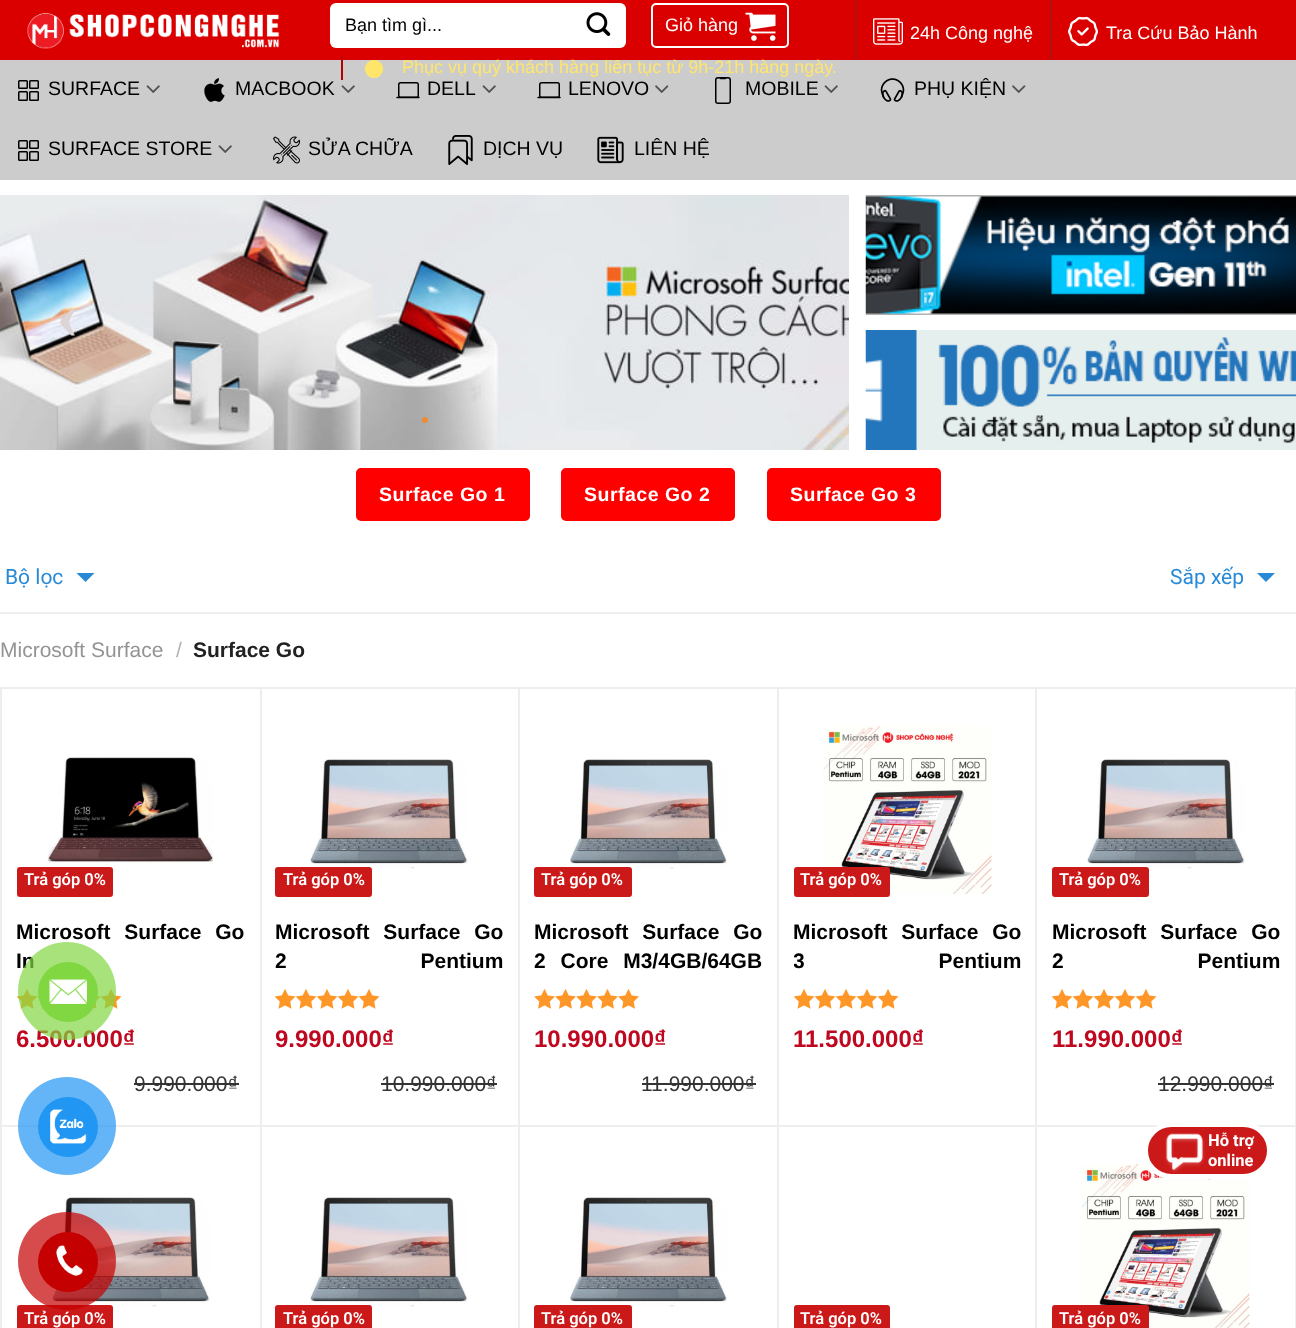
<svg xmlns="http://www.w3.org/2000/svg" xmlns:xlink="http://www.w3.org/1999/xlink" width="1296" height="1328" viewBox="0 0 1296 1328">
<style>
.cls-1{font:18px Liberation Sans;fill:#000000}
.cls-2{font:18px Liberation Sans;fill:#ffffff}
.cls-3{font:18px Liberation Sans;fill:#ffe66b}
.cls-4{font:19.5px Liberation Sans;fill:#000000}
.cls-5{font:bold 69px Liberation Serif;letter-spacing:1px;fill:#dcd5d7}
.cls-6{font:bold 19.5px Liberation Sans;letter-spacing:0.5px;fill:#ffffff}
.cls-7{font:21px Roboto;fill:#288ad6}
.cls-8{font:21px Liberation Sans;fill:#949494}
.cls-9{font:21px Liberation Sans;fill:#b2b2b2}
.cls-10{font:bold 21px Liberation Sans;fill:#222222}
.cls-11{font:600 16.5px Roboto;fill:#ffffff}
.cls-12{font:bold 21px Liberation Sans;fill:#000000}
.cls-13{font:bold 24px Liberation Sans;fill:#bf081f}
.cls-14{font:21px Liberation Sans;fill:#333333}
.cls-15{font:bold 16.5px Roboto;fill:#ffffff}
</style>
<defs>
<clipPath id="clip1"><rect x="710" y="77" width="27" height="27"/></clipPath>
<clipPath id="clip2"><rect x="794" y="918" width="228" height="60"/></clipPath>
</defs>
<rect width="100%" height="100%" fill="#ffffff"/>
<rect fill="#da0000" x="0" y="0" width="1296" height="60"/>
<image xlink:href="image0.png" x="27" y="12" width="253" height="37"/>
<rect fill="#ffffff" x="330" y="3" width="296" height="45" rx="6"/>
<rect fill="none" stroke="#ffffff" stroke-opacity="0.09" stroke-width="2" x="331" y="4" width="294" height="43" rx="5"/>
<image xlink:href="image1.png" x="586" y="12" width="25" height="24"/>
<rect fill="none" stroke="#ffffff" stroke-width="2" x="652" y="4" width="136" height="43" rx="4"/>
<image xlink:href="image2.png" x="745" y="12" width="31" height="29"/>
<rect fill="#cccccc" x="0" y="60" width="1296" height="120"/>
<rect fill="#b30000" x="341" y="57" width="2" height="23"/>
<circle fill="#ffe66b" cx="374" cy="69" r="9"/>
<circle fill="#ffe66b" fill-opacity="0.2" stroke="#ffe66b" stroke-width="2" cx="374" cy="69" r="8"/>
<rect fill="#af1212" x="855" y="0" width="2" height="60"/>
<image xlink:href="image3.png" x="873" y="18" width="30" height="27"/>
<rect fill="#af1212" x="1050" y="0" width="2" height="60"/>
<image xlink:href="image4.png" x="1068" y="16" width="30" height="31"/>
<rect fill="none" stroke="#000000" stroke-width="1.5" x="18.75" y="80.75" width="8.5" height="7.5" rx="0.75"/>
<rect fill="none" stroke="#000000" stroke-width="1.5" x="29.75" y="80.75" width="8.5" height="7.5" rx="0.75"/>
<rect fill="none" stroke="#000000" stroke-width="1.5" x="18.75" y="91.75" width="8.5" height="8.5" rx="0.75"/>
<rect fill="none" stroke="#000000" stroke-width="1.5" x="29.75" y="91.75" width="8.5" height="8.5" rx="0.75"/>
<image xlink:href="image5.png" x="146" y="85" width="14" height="8"/>
<image xlink:href="image6.png" x="204" y="78" width="21" height="24"/>
<image xlink:href="image5.png" x="341" y="85" width="14" height="8"/>
<rect fill="none" stroke="#000000" stroke-width="1.5" x="398.75" y="82.75" width="19.5" height="14.5" rx="1.75"/>
<path fill="none" stroke="#000000" stroke-width="1.5" stroke-linecap="round" d="M397 97.5H419"/>
<image xlink:href="image5.png" x="482" y="85" width="14" height="8"/>
<rect fill="none" stroke="#000000" stroke-width="1.5" x="539.75" y="82.75" width="19.5" height="14.5" rx="1.75"/>
<path fill="none" stroke="#000000" stroke-width="1.5" stroke-linecap="round" d="M538 97.5H560"/>
<image xlink:href="image7.png" x="655" y="85" width="14" height="8"/>
<rect fill="none" stroke="#000000" stroke-width="1.5" x="715.75" y="77.75" width="14.5" height="25.5" rx="2.25"/>
<g clip-path="url(#clip1)">
<path fill="none" stroke="#000000" stroke-width="1.7" stroke-linecap="round" stroke-linejoin="round" d="M719 77.5C721.5 77.5 720 78.5 721.5 78.5H725L725.5 77.5H727"/>
</g>
<image xlink:href="image5.png" x="824" y="85" width="14" height="8"/>
<image xlink:href="image8.png" x="880" y="78" width="25" height="24"/>
<image xlink:href="image7.png" x="1012" y="85" width="14" height="8"/>
<rect fill="none" stroke="#000000" stroke-width="1.5" x="18.75" y="140.75" width="8.5" height="7.5" rx="0.75"/>
<rect fill="none" stroke="#000000" stroke-width="1.5" x="29.75" y="140.75" width="8.5" height="7.5" rx="0.75"/>
<rect fill="none" stroke="#000000" stroke-width="1.5" x="18.75" y="151.75" width="8.5" height="8.5" rx="0.75"/>
<rect fill="none" stroke="#000000" stroke-width="1.5" x="29.75" y="151.75" width="8.5" height="8.5" rx="0.75"/>
<image xlink:href="image5.png" x="218" y="145" width="14" height="8"/>
<image xlink:href="image9.png" x="273" y="136" width="27" height="28"/>
<image xlink:href="image10.png" x="448" y="135" width="25" height="30"/>
<image xlink:href="image11.png" x="597" y="136" width="27" height="28"/>
<image xlink:href="image12.png" x="0" y="195" width="849" height="255"/>
<circle fill="#ef8a32" cx="425" cy="420" r="3"/>
<image xlink:href="image13.png" x="865" y="195" width="431" height="120"/>
<image xlink:href="image14.png" x="865" y="330" width="431" height="120"/>
<rect fill="#ff0000" stroke="#ffffff" stroke-width="3" x="354.5" y="466.5" width="177" height="56" rx="6.5"/>
<rect fill="#ff0000" stroke="#ffffff" stroke-width="3" x="559.5" y="466.5" width="177" height="56" rx="6.5"/>
<rect fill="#ff0000" stroke="#ffffff" stroke-width="3" x="765.5" y="466.5" width="177" height="56" rx="6.5"/>
<path fill="#288ad6" d="M76.5 573H94.5L85.5 582Z"/>
<path fill="#288ad6" d="M1257 573H1275L1266 582Z"/>
<rect fill="#eeeeee" x="0" y="612" width="1296" height="2"/>
<rect fill="#eeeeee" x="0" y="687" width="1296" height="2"/>
<rect fill="#eeeeee" x="0" y="687" width="2" height="641"/>
<rect fill="#eeeeee" x="260" y="689" width="2" height="639"/>
<rect fill="#eeeeee" x="2" y="1125" width="259" height="2"/>
<image xlink:href="image15.png" x="47" y="757" width="166" height="106"/>
<rect fill="#cb1818" x="17" y="867" width="96" height="30" rx="3"/>
<image xlink:href="image16.png" x="17" y="989" width="105" height="20"/>
<rect fill="#333333" x="134" y="1083" width="105" height="2"/>
<rect fill="#eeeeee" x="518" y="689" width="2" height="639"/>
<rect fill="#eeeeee" x="261" y="1125" width="258" height="2"/>
<image xlink:href="image17.png" x="310" y="759" width="158" height="110"/>
<rect fill="#cb1818" x="275" y="867" width="97" height="30" rx="3"/>
<image xlink:href="image16.png" x="275" y="989" width="105" height="20"/>
<rect fill="#333333" x="381" y="1083" width="116" height="2"/>
<rect fill="#eeeeee" x="777" y="689" width="2" height="639"/>
<rect fill="#eeeeee" x="519" y="1125" width="260" height="2"/>
<image xlink:href="image18.png" x="570" y="759" width="157" height="110"/>
<rect fill="#cb1818" x="534" y="867" width="98" height="30" rx="3"/>
<image xlink:href="image19.png" x="534" y="989" width="105" height="20"/>
<rect fill="#333333" x="642" y="1083" width="114" height="2"/>
<rect fill="#eeeeee" x="1035" y="689" width="2" height="639"/>
<rect fill="#eeeeee" x="779" y="1125" width="258" height="2"/>
<image xlink:href="image20.png" x="823" y="726" width="169" height="168"/>
<rect fill="#cb1818" x="794" y="867" width="96" height="30" rx="3"/>
<image xlink:href="image16.png" x="794" y="989" width="105" height="20"/>
<rect fill="#eeeeee" x="1295" y="689" width="1" height="639"/>
<rect fill="#eeeeee" x="1037" y="1125" width="259" height="2"/>
<image xlink:href="image21.png" x="1087" y="759" width="158" height="110"/>
<rect fill="#cb1818" x="1052" y="867" width="97" height="30" rx="3"/>
<image xlink:href="image16.png" x="1052" y="989" width="105" height="20"/>
<rect fill="#333333" x="1158" y="1083" width="116" height="2"/>
<image xlink:href="image22.png" x="52" y="1197" width="158" height="110"/>
<rect fill="#cb1818" x="17" y="1305" width="96" height="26" rx="3"/>
<image xlink:href="image23.png" x="310" y="1197" width="158" height="110"/>
<rect fill="#cb1818" x="275" y="1305" width="97" height="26" rx="3"/>
<image xlink:href="image24.png" x="570" y="1197" width="157" height="110"/>
<rect fill="#cb1818" x="534" y="1305" width="98" height="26" rx="3"/>
<rect fill="#cb1818" x="794" y="1305" width="96" height="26" rx="3"/>
<image xlink:href="image25.png" x="1081" y="1164" width="169" height="164"/>
<rect fill="#cb1818" x="1052" y="1305" width="97" height="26" rx="3"/>
<circle fill="#2196f3" fill-opacity="0.7" cx="67" cy="1126" r="49"/>
<circle fill="#2196f3" cx="68" cy="1127" r="30"/>
<image xlink:href="image27.png" x="50" y="1109" width="37" height="35"/>
<circle fill="#c40000" fill-opacity="0.7" cx="67" cy="1261" r="49"/>
<circle fill="#c40000" cx="68" cy="1262" r="30"/>
<image xlink:href="image28.png" x="56" y="1245" width="27" height="31"/>
<rect fill="#cb1818" stroke="#ffffff" stroke-width="5" x="1145.5" y="1124.5" width="124" height="52" rx="26"/>
<image xlink:href="image29.png" x="1165" y="1133" width="40" height="40"/>
<text class="cls-1" x="345" y="31">Bạn tìm gì...</text>
<text class="cls-2" x="665" y="31">Giỏ hàng</text>
<text class="cls-3" x="402" y="73">Phục vụ quý khách hàng liên tục từ 9h-21h hàng ngày.</text>
<text class="cls-2" x="910" y="39">24h Công nghệ</text>
<text class="cls-2" x="1106" y="39">Tra Cứu Bảo Hành</text>
<text class="cls-4" x="48" y="95">SURFACE</text>
<text class="cls-4" x="235" y="95">MACBOOK</text>
<text class="cls-4" x="427" y="95">DELL</text>
<text class="cls-4" x="568" y="95">LENOVO</text>
<text class="cls-4" x="745" y="95">MOBILE</text>
<text class="cls-4" x="914" y="95">PHỤ KIỆN</text>
<text class="cls-4" x="48" y="155">SURFACE STORE</text>
<text class="cls-4" x="308" y="155">SỬA CHỮA</text>
<text class="cls-4" x="483" y="155">DỊCH VỤ</text>
<text class="cls-4" x="634" y="155">LIÊN HỆ</text>
<text class="cls-5" x="56" y="338">‹</text>
<text class="cls-6" x="379" y="501">Surface Go 1</text>
<text class="cls-6" x="584" y="501">Surface Go 2</text>
<text class="cls-6" x="790" y="501">Surface Go 3</text>
<text class="cls-7" x="5" y="584">Bộ lọc</text>
<text class="cls-7" x="1170" y="584">Sắp xếp</text>
<text class="cls-8" x="0" y="657">Microsoft Surface</text>
<text class="cls-9" x="176" y="657">/</text>
<text class="cls-10" x="193" y="657">Surface Go</text>
<text class="cls-11" x="24" y="885">Trả góp 0%</text>
<text class="cls-12"><tspan x="16" y="939" word-spacing="8">Microsoft Surface Go</tspan><tspan x="16" y="968">In</tspan></text>
<text class="cls-13" x="16" y="1047">6.500.000₫</text>
<text class="cls-14" x="134" y="1091">9.990.000₫</text>
<text class="cls-11" x="283" y="885">Trả góp 0%</text>
<text class="cls-12"><tspan x="275" y="939" word-spacing="8">Microsoft Surface Go</tspan><tspan x="275" y="968" word-spacing="128">2 Pentium</tspan></text>
<text class="cls-13" x="275" y="1047">9.990.000₫</text>
<text class="cls-14" x="381" y="1091">10.990.000₫</text>
<text class="cls-11" x="541" y="885">Trả góp 0%</text>
<text class="cls-12"><tspan x="534" y="939" word-spacing="8">Microsoft Surface Go</tspan><tspan x="534" y="968" word-spacing="9">2 Core M3/4GB/64GB</tspan></text>
<text class="cls-13" x="534" y="1047">10.990.000₫</text>
<text class="cls-14" x="641" y="1091">11.990.000₫</text>
<text class="cls-11" x="800" y="885">Trả góp 0%</text>
<text class="cls-12" x="793" y="939" word-spacing="8">Microsoft Surface Go</text>
<g clip-path="url(#clip2)">
<text class="cls-12" x="793" y="968" word-spacing="128">3 Pentium</text>
</g>
<text class="cls-13" x="793" y="1047">11.500.000₫</text>
<text class="cls-11" x="1059" y="885">Trả góp 0%</text>
<text class="cls-12"><tspan x="1052" y="939" word-spacing="8">Microsoft Surface Go</tspan><tspan x="1052" y="968" word-spacing="128">2 Pentium</tspan></text>
<text class="cls-13" x="1052" y="1047">11.990.000₫</text>
<text class="cls-14" x="1158" y="1091">12.990.000₫</text>
<text class="cls-11" x="24" y="1324">Trả góp 0%</text>
<text class="cls-11" x="283" y="1324">Trả góp 0%</text>
<text class="cls-11" x="541" y="1324">Trả góp 0%</text>
<text class="cls-11" x="800" y="1324">Trả góp 0%</text>
<text class="cls-11" x="1059" y="1324">Trả góp 0%</text>
<circle fill="#81d742" fill-opacity="0.7" cx="67" cy="991" r="49"/>
<circle fill="#81d742" cx="68" cy="992" r="30"/>
<image xlink:href="image26.png" x="49" y="979" width="38" height="25"/>
<text class="cls-15"><tspan x="1208" y="1146">Hỗ trợ</tspan><tspan x="1208" y="1166">online</tspan></text>
</svg>
